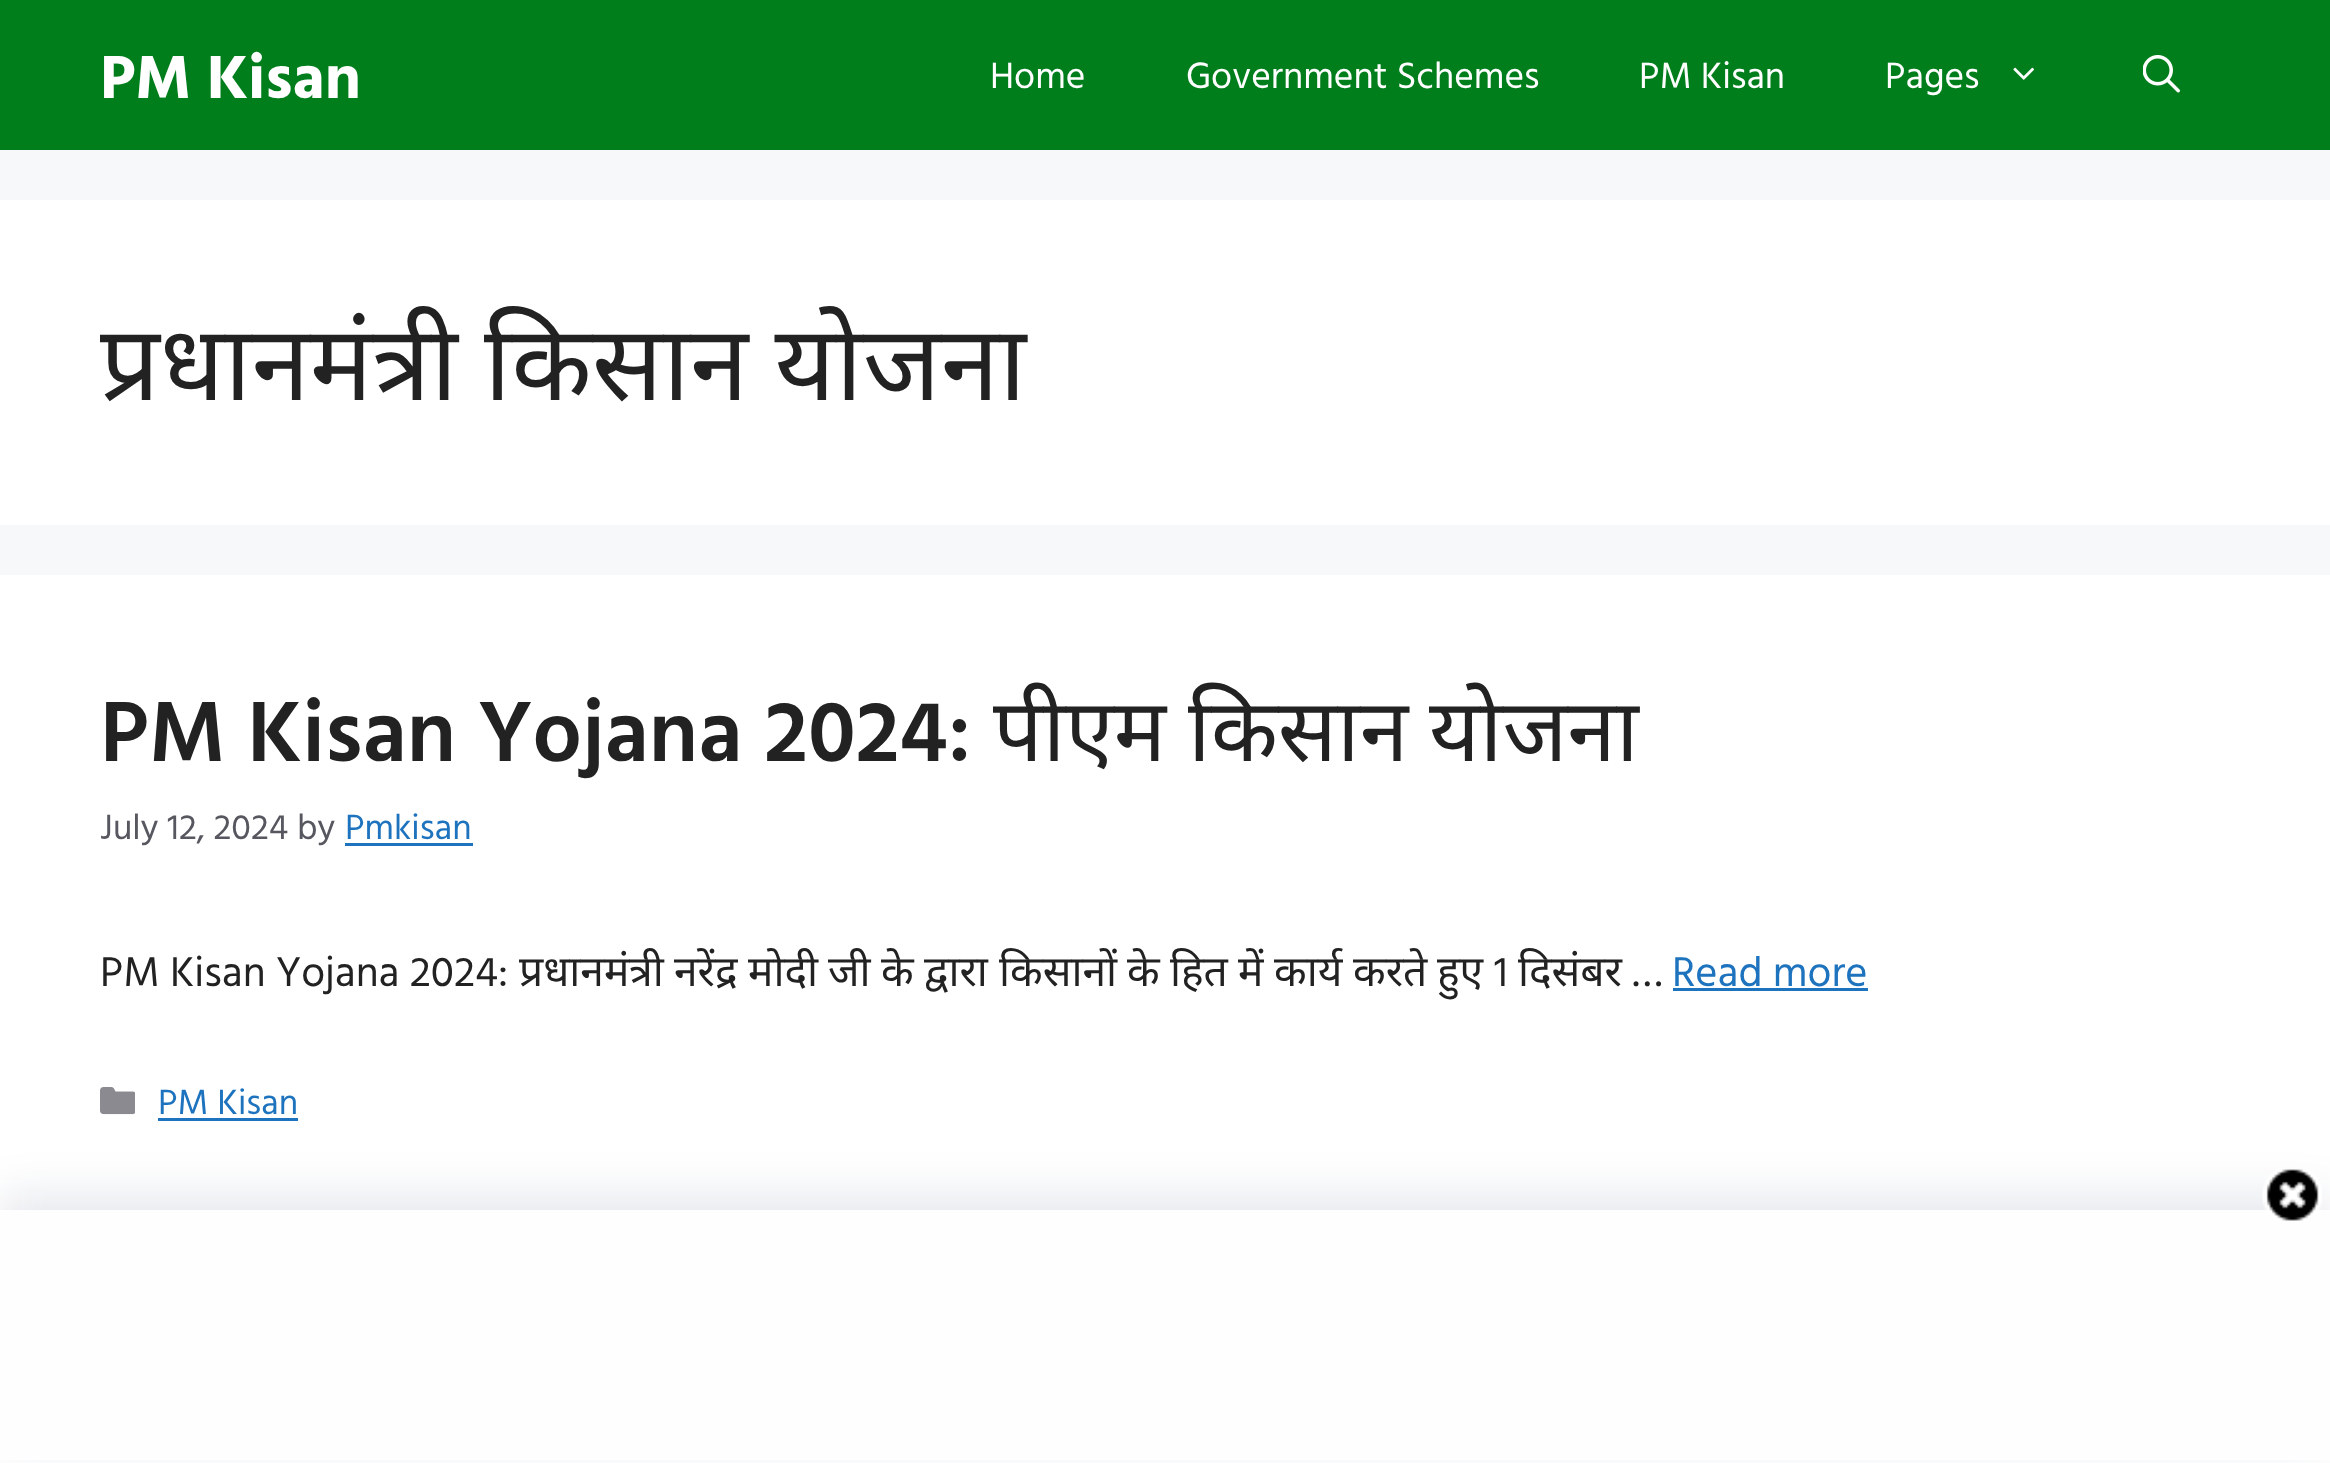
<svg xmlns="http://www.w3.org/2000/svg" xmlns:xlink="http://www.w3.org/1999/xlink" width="2330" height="1463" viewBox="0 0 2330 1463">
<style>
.cls-1{font:bold 62.5px Hind Vadodara;fill:#ffffff}
.cls-2{font:37.5px Hind Vadodara;fill:#ffffff}
.cls-3{font:105px Noto Sans;fill:#222222}
.cls-4{font:600 87.5px Hind Vadodara;fill:#222222}
.cls-5{font:87.5px Noto Sans;fill:#222222}
.cls-6{font:36px Hind Vadodara;fill:#575760}
.cls-7{font:36px Hind Vadodara;fill:#1e73be}
.cls-8{font:42.5px Hind Vadodara;fill:#222222}
.cls-9{font:42.5px Noto Sans;fill:#222222}
.cls-10{font:42.5px Hind Vadodara;fill:#1e73be}
</style>
<rect width="100%" height="100%" fill="#f7f8f9"/>
<rect fill="#007e1b" x="0" y="0" width="2330" height="150"/>
<image xlink:href="image0.png" x="2013" y="67" width="21" height="13"/>
<image xlink:href="image1.png" x="2143" y="55" width="37" height="38"/>
<rect fill="#ffffff" x="0" y="200" width="2330" height="325"/>
<rect fill="#ffffff" x="0" y="575" width="2330" height="635"/>
<rect fill="#1e73be" x="345" y="843" width="128" height="3"/>
<rect fill="#1e73be" x="1673" y="988" width="195" height="3"/>
<image xlink:href="image2.png" x="100" y="1087" width="35" height="28"/>
<rect fill="#1e73be" x="158" y="1118" width="140" height="3"/>
<rect fill="#ffffff" x="0" y="1460" width="2330" height="3"/>
<rect fill="#09204c" fill-opacity="0.1" filter="blur(22.5px)" x="0" y="1195" width="2330" height="250"/>
<rect fill="#fefefe" x="0" y="1210" width="2330" height="250"/>
<image xlink:href="image3.png" x="2262" y="1169" width="60" height="52"/>
<text class="cls-1" x="100" y="98">PM Kisan</text>
<text class="cls-2" x="990" y="88">Home</text>
<text class="cls-2" x="1186" y="88">Government Schemes</text>
<text class="cls-2" x="1639" y="88">PM Kisan</text>
<text class="cls-2" x="1885" y="88">Pages</text>
<text class="cls-3" x="100" y="400" word-spacing="-1">प्रधानमंत्री किसान योजना</text>
<text class="cls-4" x="100" y="761">PM Kisan Yojana 2024:</text>
<text class="cls-5" x="993" y="761">पीएम</text>
<text class="cls-5" x="1188" y="761">किसान</text>
<text class="cls-5" x="1429" y="761">योजना</text>
<text class="cls-6" x="100" y="839">July 12, 2024 by</text>
<text class="cls-7" x="345" y="839">Pmkisan</text>
<text class="cls-8" x="100" y="986">PM Kisan Yojana 2024:</text>
<text class="cls-9" x="519" y="986">प्रधानमंत्री</text>
<text class="cls-9" x="674" y="986">नरेंद्र</text>
<text class="cls-9" x="748" y="986">मोदी</text>
<text class="cls-9" x="828" y="986">जी</text>
<text class="cls-9" x="881" y="986">के</text>
<text class="cls-9" x="924" y="986">द्वारा</text>
<text class="cls-9" x="999" y="986">किसानों</text>
<text class="cls-9" x="1127" y="986">के</text>
<text class="cls-9" x="1170" y="986">हित</text>
<text class="cls-9" x="1238" y="986">में</text>
<text class="cls-9" x="1274" y="986">कार्य</text>
<text class="cls-9" x="1353" y="986">करते</text>
<text class="cls-9" x="1437" y="986">हुए</text>
<text class="cls-8" x="1494" y="986">1</text>
<text class="cls-9" x="1518" y="986">दिसंबर</text>
<text class="cls-8" x="1632" y="986">…</text>
<text class="cls-10" x="1672" y="986">Read more</text>
<text class="cls-7" x="158" y="1114">PM Kisan</text>
</svg>
